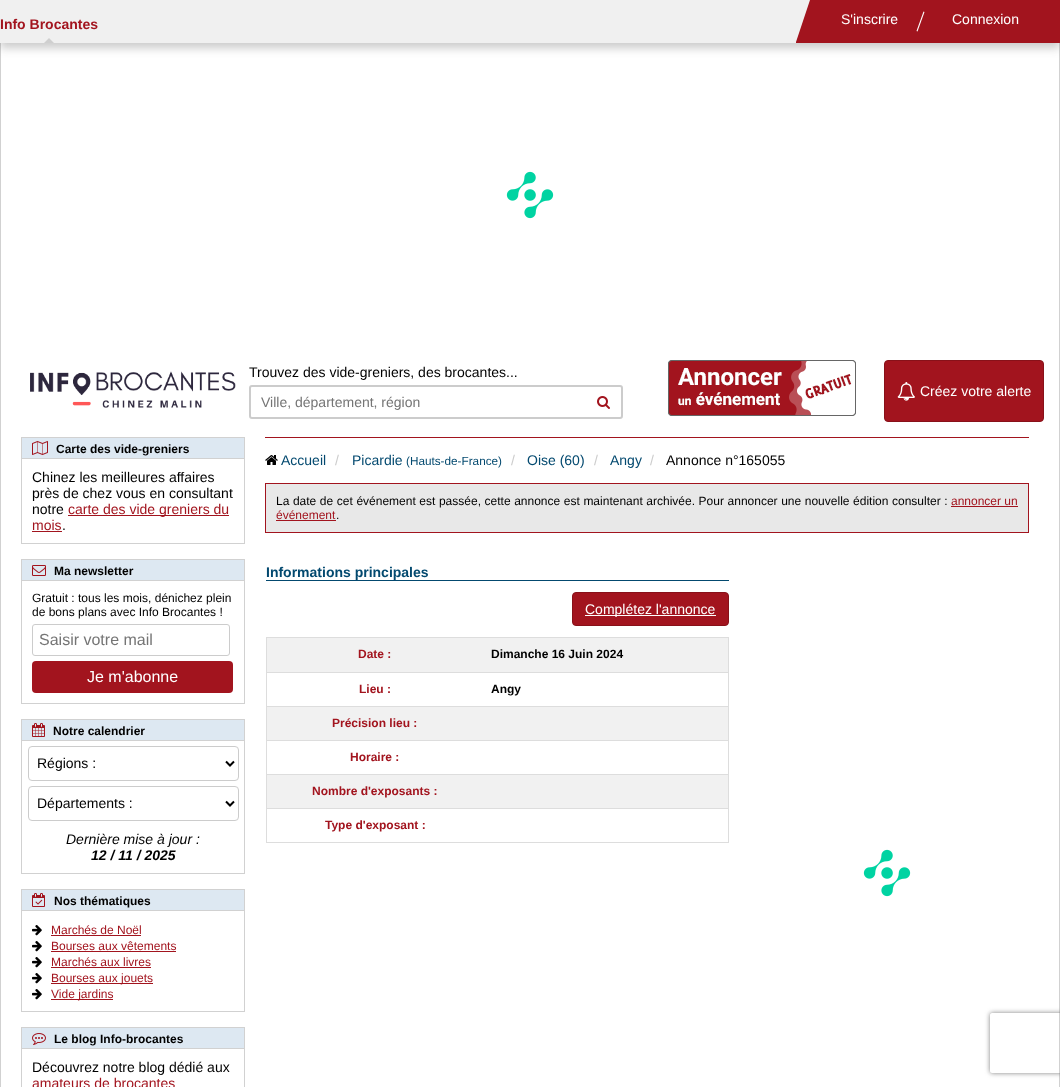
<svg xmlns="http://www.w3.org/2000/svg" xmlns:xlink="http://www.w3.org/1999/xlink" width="1060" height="1087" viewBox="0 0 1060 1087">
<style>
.cls-1{font:bold 14px Liberation Sans;fill:#a2141e}
.cls-2{font:14px Liberation Sans;fill:#ffffff}
.cls-3{font:14px Liberation Sans;fill:#000000}
.cls-4{font:14px Liberation Sans;fill:#757575}
.cls-5{font:bold 12px Liberation Sans;fill:#000000}
.cls-6{font:14px Liberation Sans;fill:#a2141e}
.cls-7{font:12px Liberation Sans;fill:#000000}
.cls-8{font:16px Liberation Sans;fill:#757575}
.cls-9{font:16px Liberation Sans;fill:#ffffff}
.cls-10{font:italic 14px Liberation Sans;fill:#000000}
.cls-11{font:italic bold 14px Liberation Sans;fill:#000000}
.cls-12{font:12px Liberation Sans;fill:#a2141e}
.cls-13{font:14px Liberation Sans;fill:#03496f}
.cls-14{font:14px Liberation Sans;fill:#cccccc}
.cls-15{font:11.75px Liberation Sans;fill:#03496f}
.cls-16{font:bold 14px Liberation Sans;fill:#03496f}
.cls-17{font:bold 12px Liberation Sans;fill:#a2141e}
</style>
<defs>
<clipPath id="clip1"><path d="M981 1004H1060V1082H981ZM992 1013H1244C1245 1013 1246 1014 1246 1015V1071C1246 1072 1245 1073 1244 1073H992C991 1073 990 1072 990 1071V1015C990 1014 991 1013 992 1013Z" clip-rule="evenodd"/></clipPath>
</defs>
<rect width="100%" height="100%" fill="#ffffff"/>
<rect fill="#d1d1d1" x="1059" y="43" width="1" height="1044"/>
<rect fill="#d1d1d1" x="0" y="43" width="1" height="1044"/>
<rect fill="#2b2b2b" fill-opacity="0.25" filter="blur(5px)" x="0" y="5" width="1060" height="43"/>
<rect fill="#f0f0f0" x="0" y="0" width="810" height="43"/>
<path fill="#cfcfcf" d="M54 43H44L49 38Z"/>
<rect fill="#a2141e" x="810" y="0" width="250" height="43"/>
<path fill="#a2141e" d="M810 0V43H796V42Z"/>
<path fill="#ffffff" d="M923.5 11.5L924.5 12L917.5 31.5L916.5 31Z"/>
<image xlink:href="image0.png" x="506" y="171" width="48" height="48"/>
<image xlink:href="image1.png" x="30" y="371" width="206" height="37"/>
<rect fill="none" stroke="#cccccc" stroke-width="2" x="250" y="386" width="372" height="32" rx="2"/>
<image xlink:href="image2.png" x="597" y="396" width="13" height="13"/>
<image xlink:href="image3.png" x="668" y="360" width="188" height="56"/>
<rect fill="#a2141e" stroke="#881119" x="884.5" y="360.5" width="159" height="61" rx="3.5"/>
<image xlink:href="image4.png" x="897" y="382" width="18" height="19"/>
<rect fill="#d1d1d1" x="244" y="437" width="1" height="107"/>
<rect fill="#d1d1d1" x="21" y="543" width="224" height="1"/>
<rect fill="#d1d1d1" x="21" y="437" width="1" height="107"/>
<rect fill="#dde8f2" x="22" y="438" width="222" height="20"/>
<rect fill="#d1d1d1" x="22" y="437" width="222" height="1"/>
<rect fill="#d1d1d1" x="22" y="458" width="222" height="1"/>
<image xlink:href="image5.png" x="32" y="441" width="16" height="14"/>
<rect fill="#a2141e" x="68" y="515" width="161" height="1"/>
<rect fill="#a2141e" x="32" y="531" width="30" height="1"/>
<rect fill="#d1d1d1" x="244" y="559" width="1" height="145"/>
<rect fill="#d1d1d1" x="21" y="703" width="224" height="1"/>
<rect fill="#d1d1d1" x="21" y="559" width="1" height="145"/>
<rect fill="#dde8f2" x="22" y="560" width="222" height="20"/>
<rect fill="#d1d1d1" x="22" y="559" width="222" height="1"/>
<rect fill="#d1d1d1" x="22" y="580" width="222" height="1"/>
<image xlink:href="image6.png" x="32" y="565" width="14" height="11"/>
<rect fill="none" stroke="#cccccc" x="32.5" y="624.5" width="197" height="31" rx="2.5"/>
<rect fill="#a2141e" x="32" y="661" width="201" height="32" rx="4"/>
<rect fill="#d1d1d1" x="244" y="719" width="1" height="155"/>
<rect fill="#d1d1d1" x="21" y="873" width="224" height="1"/>
<rect fill="#d1d1d1" x="21" y="719" width="1" height="155"/>
<rect fill="#dde8f2" x="22" y="720" width="222" height="20"/>
<rect fill="#d1d1d1" x="22" y="719" width="222" height="1"/>
<rect fill="#d1d1d1" x="22" y="740" width="222" height="1"/>
<image xlink:href="image7.png" x="32" y="723" width="13" height="14"/>
<rect fill="none" stroke="#cccccc" x="28.5" y="746.5" width="210" height="34" rx="3.5"/>
<path fill="none" stroke="#000000" stroke-width="2" d="M226 761.5L230 765.5L234 761.5"/>
<rect fill="none" stroke="#cccccc" x="28.5" y="786.5" width="210" height="34" rx="3.5"/>
<path fill="none" stroke="#000000" stroke-width="2" d="M226 801.5L230 805.5L234 801.5"/>
<rect fill="#d1d1d1" x="244" y="889" width="1" height="123"/>
<rect fill="#d1d1d1" x="21" y="1011" width="224" height="1"/>
<rect fill="#d1d1d1" x="21" y="889" width="1" height="123"/>
<rect fill="#dde8f2" x="22" y="890" width="222" height="20"/>
<rect fill="#d1d1d1" x="22" y="889" width="222" height="1"/>
<rect fill="#d1d1d1" x="22" y="910" width="222" height="1"/>
<image xlink:href="image8.png" x="32" y="893" width="13" height="14"/>
<image xlink:href="image9.png" x="32" y="925" width="10" height="11"/>
<rect fill="#a2141e" x="51" y="935" width="90" height="1"/>
<image xlink:href="image9.png" x="32" y="941" width="10" height="11"/>
<rect fill="#a2141e" x="51" y="951" width="125" height="1"/>
<image xlink:href="image9.png" x="32" y="957" width="10" height="11"/>
<rect fill="#a2141e" x="51" y="967" width="100" height="1"/>
<image xlink:href="image9.png" x="32" y="973" width="10" height="11"/>
<rect fill="#a2141e" x="51" y="983" width="102" height="1"/>
<image xlink:href="image9.png" x="32" y="989" width="10" height="11"/>
<rect fill="#a2141e" x="51" y="999" width="62" height="1"/>
<rect fill="#d1d1d1" x="244" y="1027" width="1" height="60"/>
<rect fill="#d1d1d1" x="21" y="1027" width="1" height="60"/>
<rect fill="#dde8f2" x="22" y="1028" width="222" height="20"/>
<rect fill="#d1d1d1" x="22" y="1027" width="222" height="1"/>
<rect fill="#d1d1d1" x="22" y="1048" width="222" height="1"/>
<image xlink:href="image10.png" x="32" y="1033" width="14" height="12"/>
<rect fill="#a2141e" x="265" y="437" width="764" height="1"/>
<image xlink:href="image11.png" x="265" y="455" width="13" height="10"/>
<rect fill="#e8e8e8" stroke="#a2141e" x="265.5" y="483.5" width="763" height="49"/>
<rect fill="#a2141e" x="951" y="506" width="67" height="1"/>
<rect fill="#a2141e" x="276" y="520" width="60" height="1"/>
<rect fill="#03496f" x="266" y="580" width="463" height="1"/>
<rect fill="#a2141e" stroke="#881119" x="572.5" y="592.5" width="156" height="33" rx="3.5"/>
<rect fill="#ffffff" x="585" y="615" width="131" height="1"/>
<rect fill="#dddddd" x="266" y="637" width="463" height="1"/>
<rect fill="#dddddd" x="728" y="637" width="1" height="206"/>
<rect fill="#dddddd" x="266" y="842" width="463" height="1"/>
<rect fill="#dddddd" x="266" y="637" width="1" height="206"/>
<rect fill="#f1f1f1" x="267" y="638" width="461" height="34"/>
<rect fill="#dddddd" x="266" y="672" width="463" height="1"/>
<rect fill="#f1f1f1" x="267" y="707" width="461" height="33"/>
<rect fill="#dddddd" x="266" y="706" width="463" height="1"/>
<rect fill="#dddddd" x="266" y="740" width="463" height="1"/>
<rect fill="#f1f1f1" x="267" y="775" width="461" height="33"/>
<rect fill="#dddddd" x="266" y="774" width="463" height="1"/>
<rect fill="#dddddd" x="266" y="808" width="463" height="1"/>
<image xlink:href="image0.png" x="863" y="849" width="48" height="48"/>
<g clip-path="url(#clip1)">
<rect fill="#808080" filter="blur(2.5px)" x="990" y="1013" width="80" height="60" rx="2"/>
</g>
<text class="cls-1" x="0" y="29">Info Brocantes</text>
<text class="cls-2" x="841" y="24">S'inscrire</text>
<text class="cls-2" x="952" y="24">Connexion</text>
<text class="cls-3" x="249" y="377">Trouvez des vide-greniers, des brocantes...</text>
<text class="cls-4" x="261" y="407">Ville, département, région</text>
<text class="cls-2" x="920" y="396">Créez votre alerte</text>
<text class="cls-5" x="56" y="453">Carte des vide-greniers</text>
<text class="cls-3"><tspan x="32" y="482">Chinez les meilleures affaires</tspan><tspan x="32" y="498">près de chez vous en consultant</tspan><tspan x="32" y="514">notre</tspan></text>
<text class="cls-6" x="68" y="514">carte des vide greniers du</text>
<text class="cls-6" x="32" y="530">mois</text>
<text class="cls-3" x="62" y="530">.</text>
<text class="cls-5" x="54" y="575">Ma newsletter</text>
<text class="cls-7"><tspan x="32" y="602">Gratuit : tous les mois, dénichez plein</tspan><tspan x="32" y="616">de bons plans avec Info Brocantes !</tspan></text>
<text class="cls-8" x="39" y="645">Saisir votre mail</text>
<text class="cls-9" x="87" y="682">Je m'abonne</text>
<text class="cls-5" x="53" y="735">Notre calendrier</text>
<text class="cls-3" x="37" y="768">Régions :</text>
<text class="cls-3" x="37" y="808">Départements :</text>
<text class="cls-10" x="66" y="844">Dernière mise à jour :</text>
<text class="cls-11" x="91" y="860">12 / 11 / 2025</text>
<text class="cls-5" x="54" y="905">Nos thématiques</text>
<text class="cls-12"><tspan x="51" y="934">Marchés de Noël</tspan><tspan x="51" y="950">Bourses aux vêtements</tspan><tspan x="51" y="966">Marchés aux livres</tspan><tspan x="51" y="982">Bourses aux jouets</tspan><tspan x="51" y="998">Vide jardins</tspan></text>
<text class="cls-5" x="54" y="1043">Le blog Info-brocantes</text>
<text class="cls-3" x="32" y="1072">Découvrez notre blog dédié aux</text>
<text class="cls-6" x="32" y="1088">amateurs de brocantes</text>
<text class="cls-13" x="281" y="465">Accueil</text>
<text class="cls-14" x="335" y="465">/</text>
<text class="cls-13" x="352" y="465">Picardie</text>
<text class="cls-15" x="406" y="465">(Hauts-de-France)</text>
<text class="cls-14" x="511" y="465">/</text>
<text class="cls-13" x="527" y="465">Oise (60)</text>
<text class="cls-14" x="594" y="465">/</text>
<text class="cls-13" x="610" y="465">Angy</text>
<text class="cls-14" x="650" y="465">/</text>
<text class="cls-3" x="666" y="465">Annonce n°165055</text>
<text class="cls-7" x="276" y="505" word-spacing="0.25">La date de cet événement est passée, cette annonce est maintenant archivée. Pour annoncer une nouvelle édition consulter :</text>
<text class="cls-12" x="951" y="505">annoncer un</text>
<text class="cls-12" x="276" y="519">événement</text>
<text class="cls-7" x="336" y="519">.</text>
<text class="cls-16" x="266" y="577">Informations principales</text>
<text class="cls-2" x="585" y="614">Complétez l'annonce</text>
<text class="cls-17" x="358" y="658">Date :</text>
<text class="cls-5" x="491" y="658">Dimanche 16 Juin 2024</text>
<text class="cls-17" x="359" y="693">Lieu :</text>
<text class="cls-5" x="491" y="693">Angy</text>
<text class="cls-17" x="332" y="727">Précision lieu :</text>
<text class="cls-17" x="350" y="761">Horaire :</text>
<text class="cls-17" x="312" y="795">Nombre d'exposants :</text>
<text class="cls-17" x="325" y="829">Type d'exposant :</text>
</svg>
